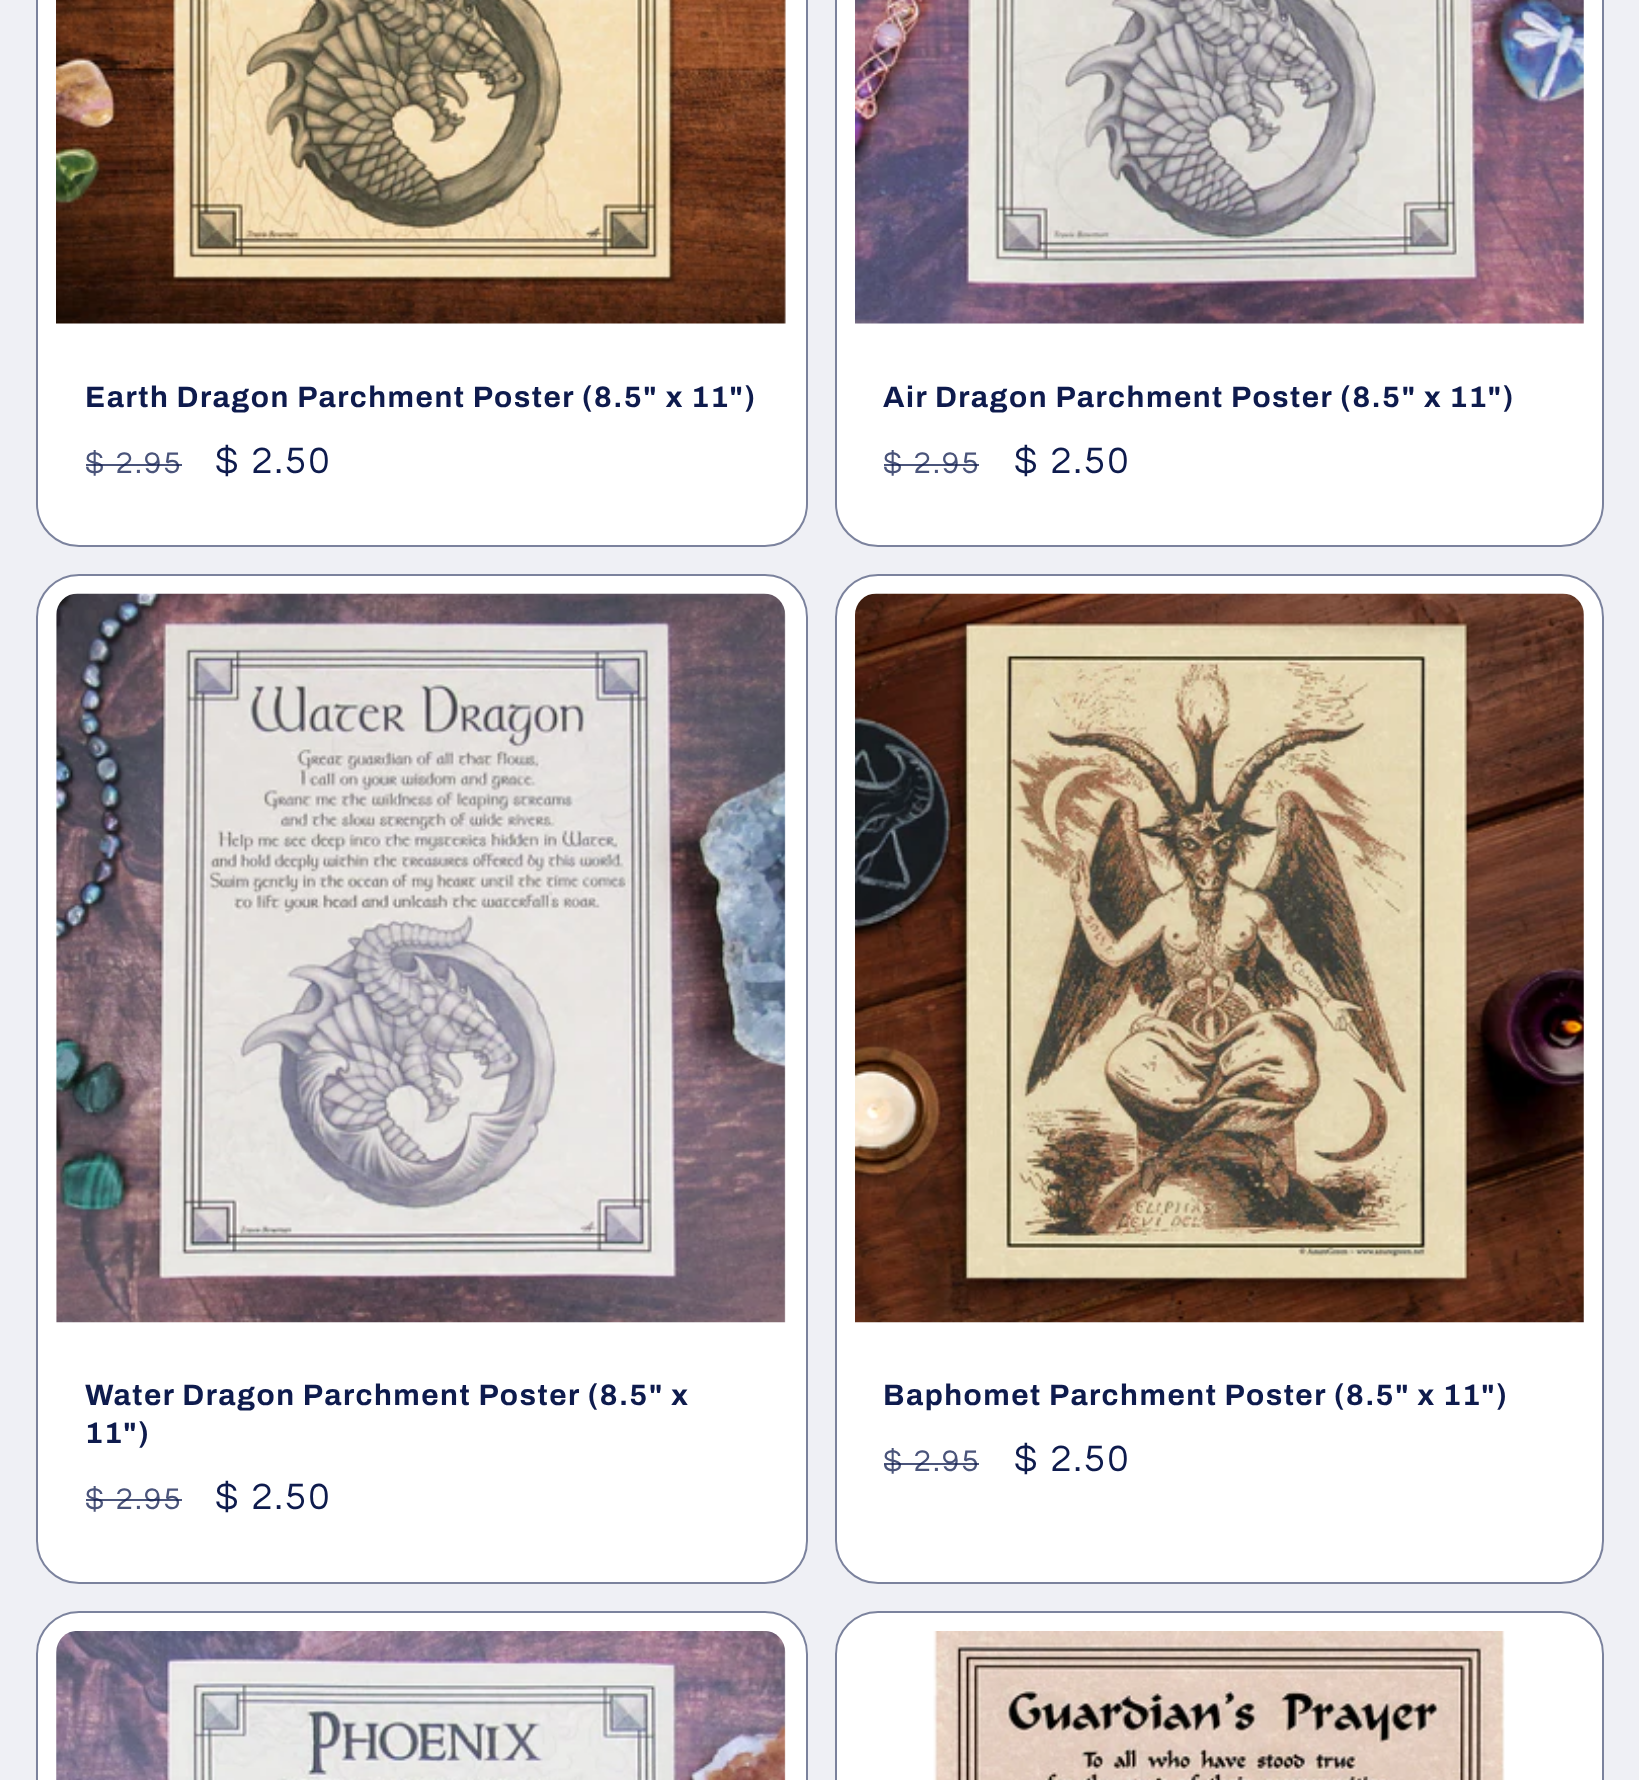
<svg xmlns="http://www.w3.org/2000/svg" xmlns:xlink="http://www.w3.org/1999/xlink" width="1639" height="1780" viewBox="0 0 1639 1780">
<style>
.cls-1{font:bold 29.7px Archivo;letter-spacing:1.5px;fill:#0e1b4d}
.cls-2{font:31px Questrial;letter-spacing:2.5px;fill:#4a547a}
.cls-3{font:38px Questrial;letter-spacing:2.5px;fill:#0e1b4d}
</style>
<rect width="100%" height="100%" fill="#eff0f5"/>
<rect fill="#ffffff" x="36" y="-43" width="772" height="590" rx="43"/>
<rect fill="none" stroke="#0e1b4d" stroke-opacity="0.55" stroke-width="2" x="37" y="-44" width="770" height="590" rx="42"/>
<image xlink:href="image0.png" x="56" y="0" width="730" height="324"/>
<rect fill="#ffffff" x="835" y="-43" width="769" height="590" rx="43"/>
<rect fill="none" stroke="#0e1b4d" stroke-opacity="0.55" stroke-width="2" x="836" y="-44" width="767" height="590" rx="42"/>
<image xlink:href="image1.png" x="855" y="0" width="729" height="324"/>
<rect fill="#ffffff" x="36" y="574" width="772" height="1010" rx="43"/>
<rect fill="none" stroke="#0e1b4d" stroke-opacity="0.55" stroke-width="2" x="37" y="575" width="770" height="1008" rx="42"/>
<image xlink:href="image2.png" x="56" y="593" width="730" height="730"/>
<rect fill="#ffffff" x="835" y="574" width="769" height="1010" rx="43"/>
<rect fill="none" stroke="#0e1b4d" stroke-opacity="0.55" stroke-width="2" x="836" y="575" width="767" height="1008" rx="42"/>
<image xlink:href="image3.png" x="855" y="593" width="729" height="730"/>
<rect fill="#ffffff" x="36" y="1611" width="772" height="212" rx="43"/>
<rect fill="none" stroke="#0e1b4d" stroke-opacity="0.55" stroke-width="2" x="37" y="1612" width="770" height="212" rx="42"/>
<image xlink:href="image4.png" x="56" y="1631" width="730" height="149"/>
<rect fill="#ffffff" x="835" y="1611" width="769" height="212" rx="43"/>
<rect fill="none" stroke="#0e1b4d" stroke-opacity="0.55" stroke-width="2" x="836" y="1612" width="767" height="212" rx="42"/>
<image xlink:href="image5.png" x="933" y="1631" width="572" height="149"/>
<text class="cls-1" x="85" y="407">Earth Dragon Parchment Poster (8.5" x 11")</text>
<text class="cls-2" x="85" y="473">$ 2.95</text>
<rect fill="#0e1b4d" fill-opacity="0.75" x="86" y="464" width="96" height="2"/>
<text class="cls-3" x="215" y="473">$ 2.50</text>
<text class="cls-1" x="883" y="407">Air Dragon Parchment Poster (8.5" x 11")</text>
<text class="cls-2" x="883" y="473">$ 2.95</text>
<rect fill="#0e1b4d" fill-opacity="0.75" x="884" y="464" width="95" height="2"/>
<text class="cls-3" x="1014" y="473">$ 2.50</text>
<text class="cls-1"><tspan x="85" y="1405">Water Dragon Parchment Poster (8.5" x</tspan><tspan x="85" y="1443">11")</tspan></text>
<text class="cls-2" x="85" y="1509">$ 2.95</text>
<rect fill="#0e1b4d" fill-opacity="0.75" x="86" y="1499" width="96" height="2"/>
<text class="cls-3" x="215" y="1509">$ 2.50</text>
<text class="cls-1" x="883" y="1405">Baphomet Parchment Poster (8.5" x 11")</text>
<text class="cls-2" x="883" y="1471">$ 2.95</text>
<rect fill="#0e1b4d" fill-opacity="0.75" x="884" y="1463" width="95" height="2"/>
<text class="cls-3" x="1014" y="1471">$ 2.50</text>
</svg>
